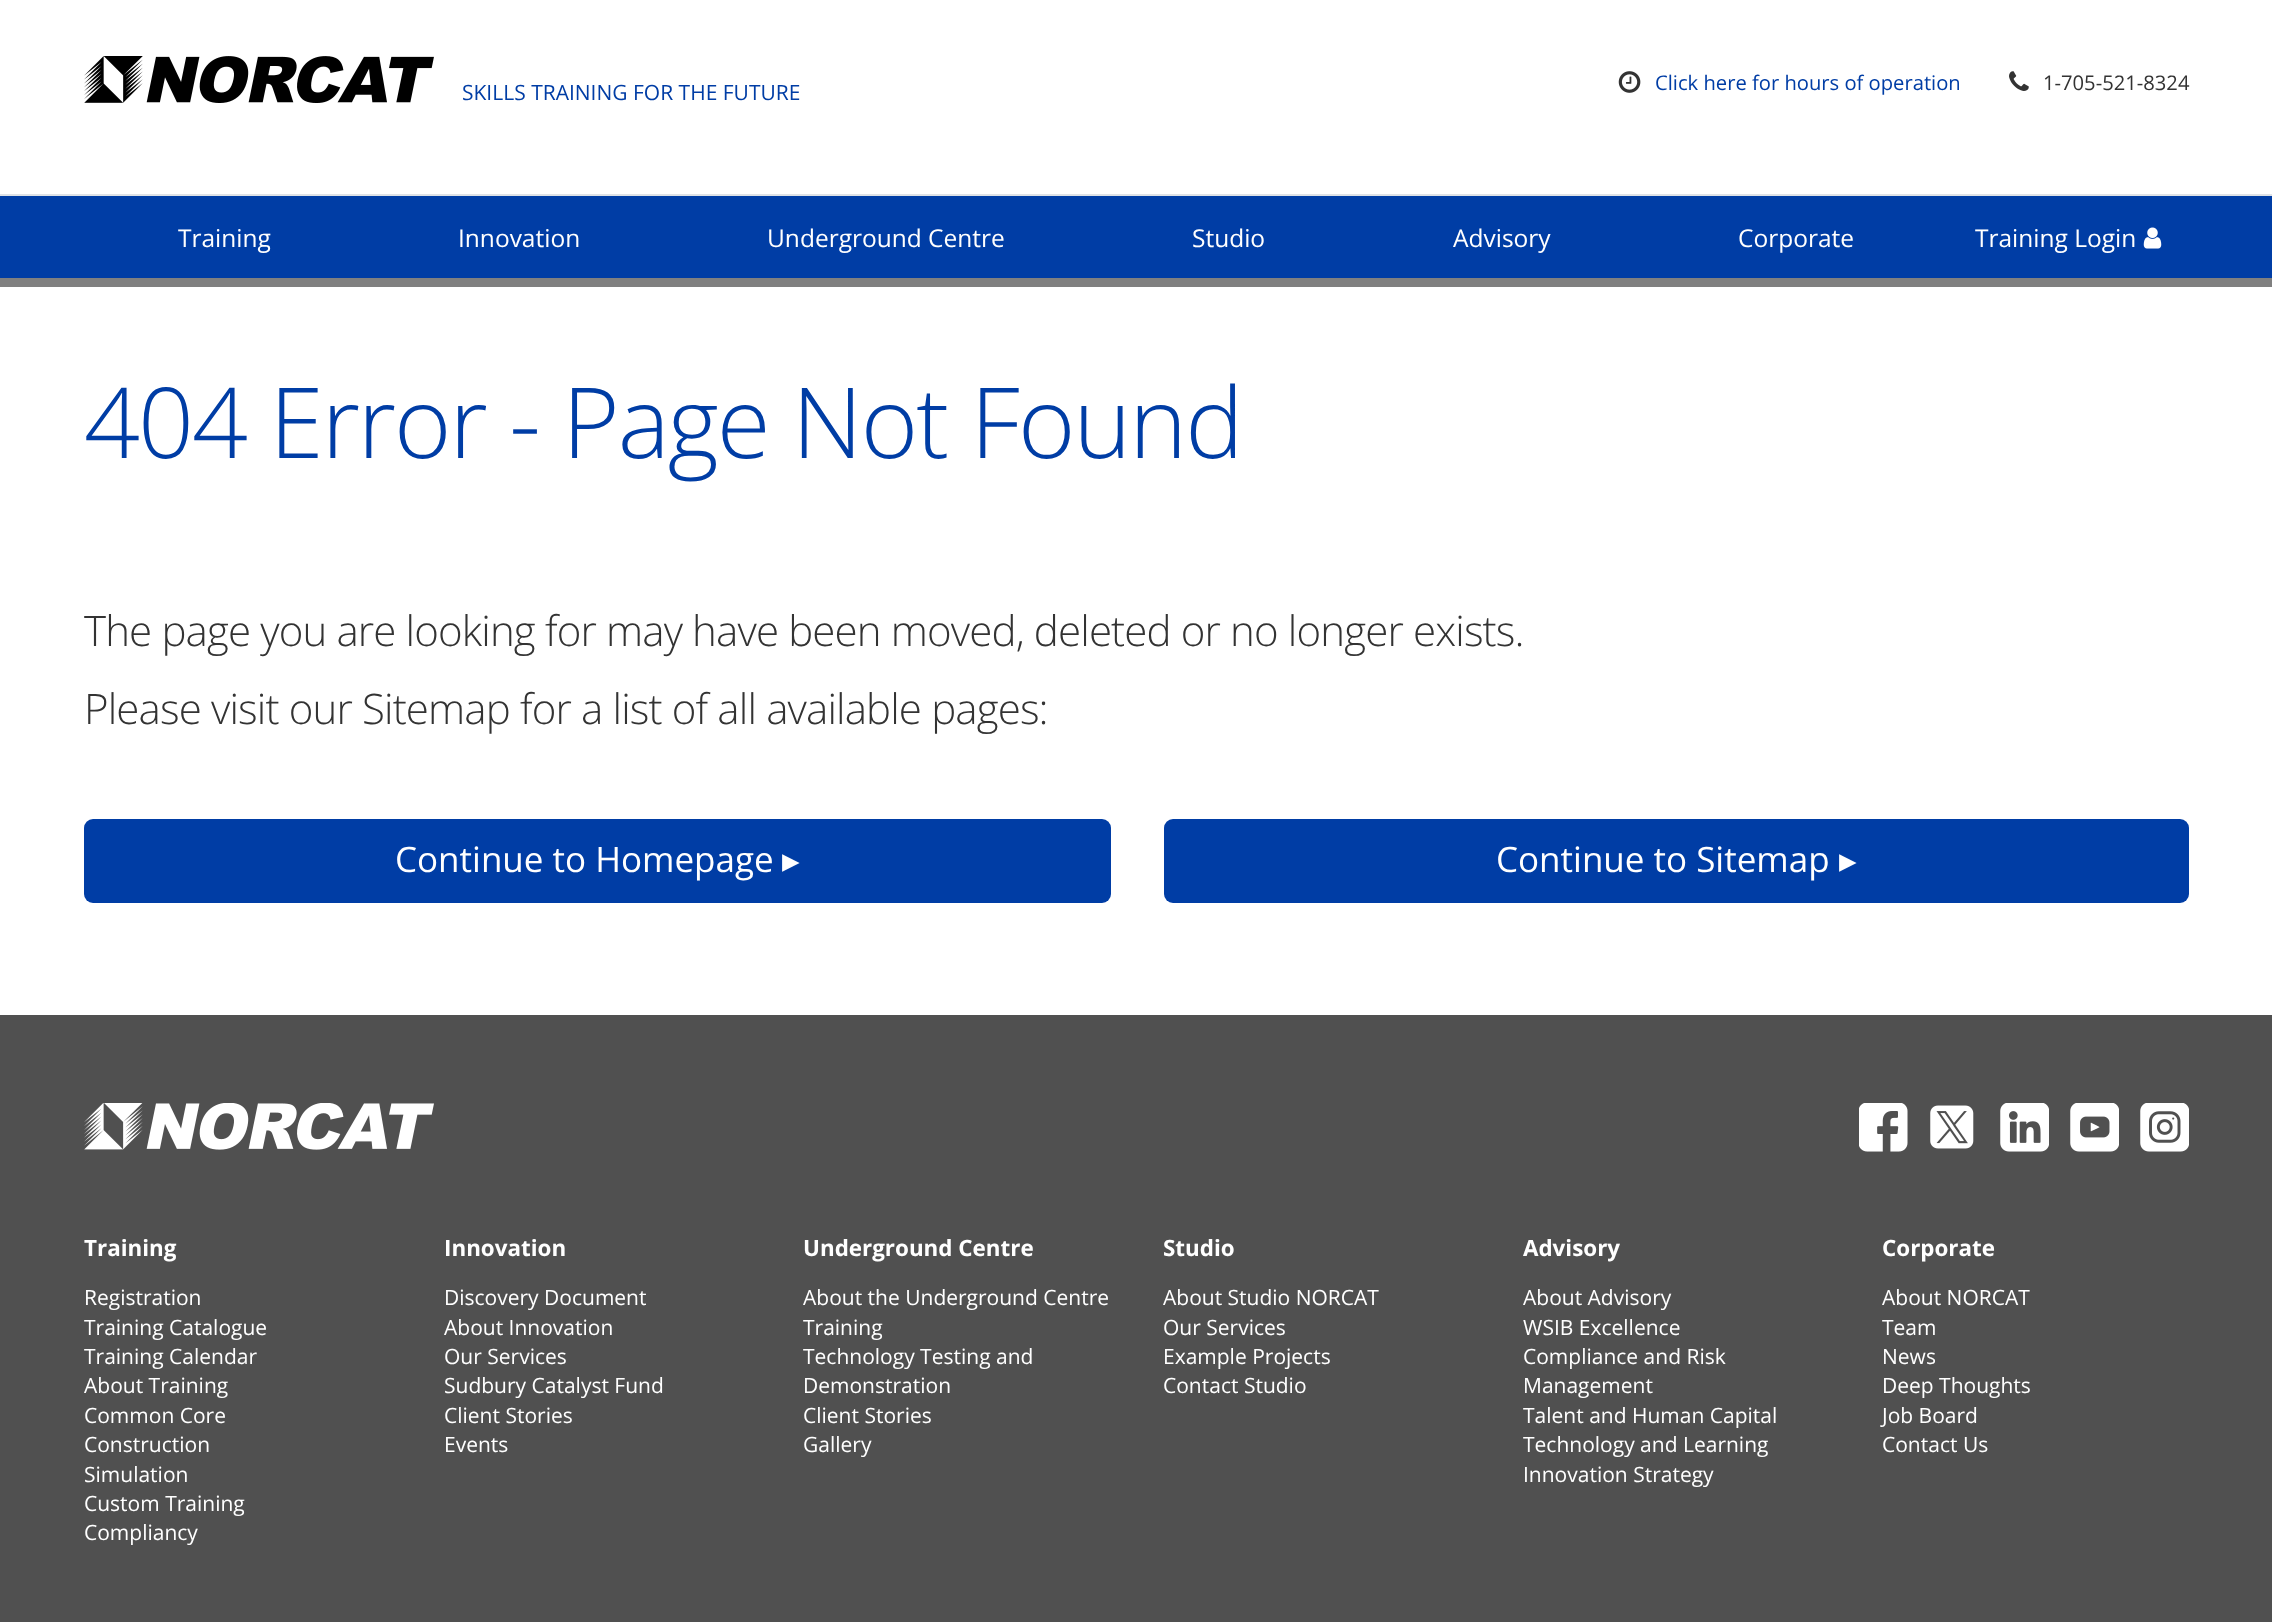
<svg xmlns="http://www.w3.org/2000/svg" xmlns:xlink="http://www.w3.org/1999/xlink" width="2272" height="1622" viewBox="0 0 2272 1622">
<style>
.cls-1{font:21px Open Sans;fill:#003da5}
.cls-2{font:20.2px Open Sans;fill:#003da5}
.cls-3{font:20.2px Open Sans;fill:#333333}
.cls-4{font:24.5px Open Sans;fill:#ffffff}
.cls-5{font:300 98px Open Sans;letter-spacing:-1.95px;fill:#003da5}
.cls-6{font:300 42px Open Sans;letter-spacing:-0.85px;fill:#333333}
.cls-7{font:35px Open Sans;fill:#ffffff}
.cls-8{font:35px DejaVu Sans;fill:#ffffff}
.cls-9{font:bold 22.4px Open Sans;fill:#ffffff}
.cls-10{font:21px Open Sans;fill:#ffffff}
</style>
<rect width="100%" height="100%" fill="#ffffff"/>
<rect fill="#dee2e6" x="0" y="194" width="2272" height="2"/>
<image xlink:href="image0.png" x="84" y="56" width="350" height="47"/>
<image xlink:href="image1.png" x="1618" y="71" width="23" height="22"/>
<image xlink:href="image2.png" x="2009" y="71" width="20" height="20"/>
<rect fill="#003da5" x="0" y="196" width="2272" height="82"/>
<image xlink:href="image3.png" x="2143" y="227" width="19" height="22"/>
<rect fill="#808080" x="0" y="278" width="2272" height="9"/>
<rect fill="#003da5" x="84" y="819" width="1027" height="84" rx="9"/>
<rect fill="#003da5" x="1164" y="819" width="1025" height="84" rx="9"/>
<rect fill="#505050" x="0" y="1015" width="2272" height="607"/>
<image xlink:href="image4.png" x="84" y="1103" width="350" height="47"/>
<image xlink:href="image5.png" x="1859" y="1103" width="49" height="49"/>
<image xlink:href="image6.png" x="1930" y="1105" width="44" height="44"/>
<image xlink:href="image7.png" x="2000" y="1103" width="49" height="49"/>
<image xlink:href="image8.png" x="2070" y="1103" width="49" height="49"/>
<image xlink:href="image9.png" x="2140" y="1103" width="49" height="49"/>
<text class="cls-1" x="462" y="100">SKILLS TRAINING FOR THE FUTURE</text>
<text class="cls-2" x="1655" y="90">Click here for hours of operation</text>
<text class="cls-3" x="2043" y="90">1-705-521-8324</text>
<text class="cls-4" x="178" y="247">Training</text>
<text class="cls-4" x="458" y="247">Innovation</text>
<text class="cls-4" x="767" y="247">Underground Centre</text>
<text class="cls-4" x="1192" y="247">Studio</text>
<text class="cls-4" x="1453" y="247">Advisory</text>
<text class="cls-4" x="1738" y="247">Corporate</text>
<text class="cls-4" x="1975" y="247">Training Login</text>
<text class="cls-5" x="84" y="458">404 Error - Page Not Found</text>
<text class="cls-6"><tspan x="84" y="646">The page you are looking for may have been moved, deleted or no longer exists.</tspan><tspan x="84" y="724">Please visit our Sitemap for a list of all available pages:</tspan></text>
<text class="cls-7" x="395" y="872">Continue to Homepage</text>
<text class="cls-8" x="782" y="872">▸</text>
<text class="cls-7" x="1496" y="872">Continue to Sitemap</text>
<text class="cls-8" x="1839" y="872">▸</text>
<text class="cls-9" x="84" y="1256">Training</text>
<text class="cls-10"><tspan x="84" y="1305">Registration</tspan><tspan x="84" y="1335">Training Catalogue</tspan><tspan x="84" y="1364">Training Calendar</tspan><tspan x="84" y="1393">About Training</tspan><tspan x="84" y="1423">Common Core</tspan><tspan x="84" y="1452">Construction</tspan><tspan x="84" y="1482">Simulation</tspan><tspan x="84" y="1511">Custom Training</tspan><tspan x="84" y="1540">Compliancy</tspan></text>
<text class="cls-9" x="444" y="1256">Innovation</text>
<text class="cls-10"><tspan x="444" y="1305">Discovery Document</tspan><tspan x="444" y="1335">About Innovation</tspan><tspan x="444" y="1364">Our Services</tspan><tspan x="444" y="1393">Sudbury Catalyst Fund</tspan><tspan x="444" y="1423">Client Stories</tspan><tspan x="444" y="1452">Events</tspan></text>
<text class="cls-9" x="803" y="1256">Underground Centre</text>
<text class="cls-10"><tspan x="803" y="1305">About the Underground Centre</tspan><tspan x="803" y="1335">Training</tspan><tspan x="803" y="1364">Technology Testing and</tspan><tspan x="803" y="1393">Demonstration</tspan><tspan x="803" y="1423">Client Stories</tspan><tspan x="803" y="1452">Gallery</tspan></text>
<text class="cls-9" x="1163" y="1256">Studio</text>
<text class="cls-10"><tspan x="1163" y="1305">About Studio NORCAT</tspan><tspan x="1163" y="1335">Our Services</tspan><tspan x="1163" y="1364">Example Projects</tspan><tspan x="1163" y="1393">Contact Studio</tspan></text>
<text class="cls-9" x="1523" y="1256">Advisory</text>
<text class="cls-10"><tspan x="1523" y="1305">About Advisory</tspan><tspan x="1523" y="1335">WSIB Excellence</tspan><tspan x="1523" y="1364">Compliance and Risk</tspan><tspan x="1523" y="1393">Management</tspan><tspan x="1523" y="1423">Talent and Human Capital</tspan><tspan x="1523" y="1452">Technology and Learning</tspan><tspan x="1523" y="1482">Innovation Strategy</tspan></text>
<text class="cls-9" x="1882" y="1256">Corporate</text>
<text class="cls-10"><tspan x="1882" y="1305">About NORCAT</tspan><tspan x="1882" y="1335">Team</tspan><tspan x="1882" y="1364">News</tspan><tspan x="1882" y="1393">Deep Thoughts</tspan><tspan x="1882" y="1423">Job Board</tspan><tspan x="1882" y="1452">Contact Us</tspan></text>
</svg>
